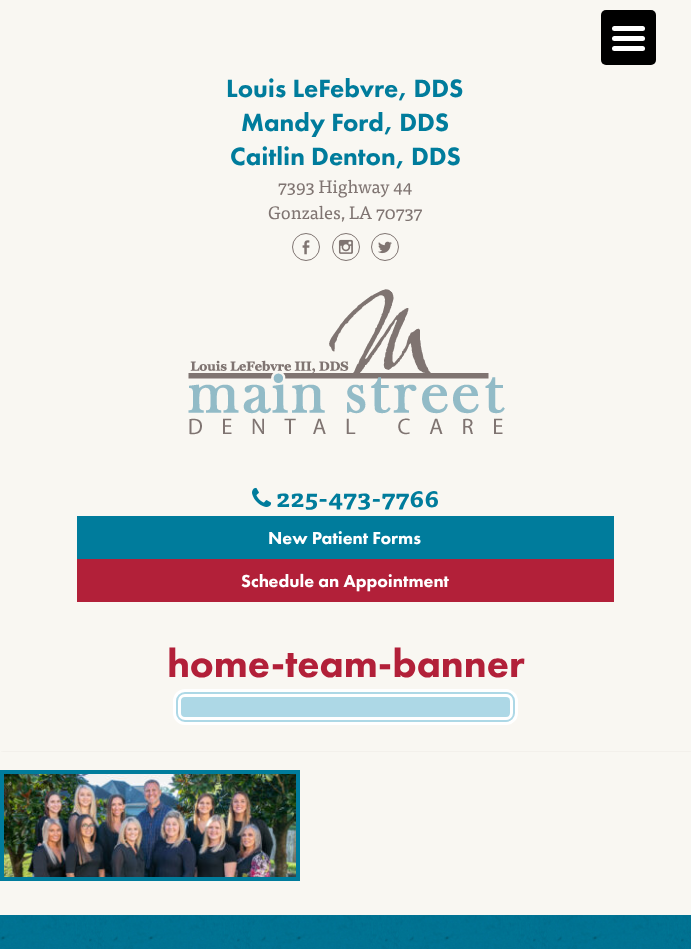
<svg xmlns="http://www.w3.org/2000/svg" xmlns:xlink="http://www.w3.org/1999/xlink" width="691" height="949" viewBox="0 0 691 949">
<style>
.cls-1{font:900 26px Futura PT;fill:#007c9c}
.cls-2{font:18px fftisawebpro;fill:#7f7471}
.cls-3{font:bold 24.25px fftisawebpro;fill:#007c9c}
.cls-4{font:900 18px Futura PT;fill:#ffffff}
.cls-5{font:900 40.5px Futura PT;fill:#b22039}
</style>
<defs>
<clipPath id="clip1"><rect x="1" y="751" width="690" height="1"/></clipPath>
</defs>
<rect width="100%" height="100%" fill="#f9f7f2"/>
<rect fill="#000000" x="601" y="10" width="55" height="55" rx="5"/>
<rect fill="#ffffff" x="612" y="36" width="33" height="5" rx="2.5"/>
<rect fill="#ffffff" x="612" y="26" width="33" height="5" rx="2.5"/>
<rect fill="#ffffff" x="612" y="46" width="33" height="5" rx="2.5"/>
<circle fill="none" stroke="#7f7471" cx="306" cy="247" r="13.5"/>
<image xlink:href="image0.png" x="302" y="240" width="8" height="15"/>
<circle fill="none" stroke="#7f7471" cx="346" cy="247" r="13.5"/>
<image xlink:href="image1.png" x="338" y="239" width="15" height="15"/>
<circle fill="none" stroke="#7f7471" cx="385" cy="247" r="13.5"/>
<image xlink:href="image2.png" x="378" y="241" width="14" height="13"/>
<image xlink:href="image3.png" x="188" y="289" width="317" height="146"/>
<image xlink:href="image4.png" x="252" y="487" width="20" height="20"/>
<rect fill="#007c9c" x="77" y="516" width="537" height="43"/>
<rect fill="#b22039" x="77" y="559" width="537" height="43"/>
<rect fill="#add8e6" stroke="#ffffff" stroke-width="3" x="174.5" y="690.5" width="342" height="33" rx="10.5"/>
<rect fill="none" stroke="#ffffff" stroke-width="3" x="179.5" y="695.5" width="332" height="23" rx="5.5"/>
<g clip-path="url(#clip1)">
<rect fill="#867c78" fill-opacity="0.35" filter="blur(1.5px)" x="1" y="753" width="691" height="163"/>
</g>
<rect fill="none" stroke="#007c9c" stroke-width="4" x="2" y="772" width="296" height="107"/>
<image xlink:href="image5.png" x="4" y="774" width="292" height="103"/>
<image xlink:href="image6.png" x="0" y="915" width="691" height="34"/>
<text class="cls-1" x="226" y="97">Louis LeFebvre, DDS</text>
<text class="cls-1" x="241" y="131">Mandy Ford, DDS</text>
<text class="cls-1" x="230" y="165">Caitlin Denton, DDS</text>
<text class="cls-2" x="278" y="193">7393 Highway 44</text>
<text class="cls-2" x="268" y="219">Gonzales, LA 70737</text>
<text class="cls-3" x="276" y="507">225-473-7766</text>
<text class="cls-4" x="268" y="544">New Patient Forms</text>
<text class="cls-4" x="241" y="587">Schedule an Appointment</text>
<text class="cls-5" x="167" y="677">home-team-banner</text>
</svg>
